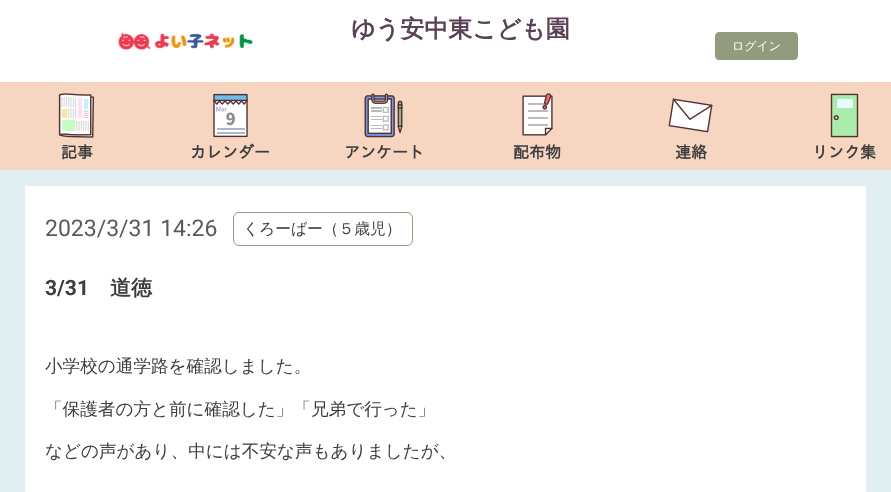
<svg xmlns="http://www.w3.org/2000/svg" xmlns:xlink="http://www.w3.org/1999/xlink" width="891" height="492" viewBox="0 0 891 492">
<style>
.cls-1{font:bold 24px WenQuanYi Zen Hei;fill:#594255}
.cls-2{font:500 12px WenQuanYi Zen Hei;fill:#ffffff}
.cls-3{font:bold 16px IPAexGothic;fill:#3e3e3e}
.cls-4{font:23px Roboto;fill:#595959}
.cls-5{font:500 15.75px WenQuanYi Zen Hei;fill:#3e3e3e}
.cls-6{font:bold 21px Roboto;fill:#3e3e3e}
.cls-7{font:bold 21px WenQuanYi Zen Hei;fill:#3e3e3e}
.cls-8{font:500 17.6px WenQuanYi Zen Hei;fill:#3e3e3e}
</style>
<rect width="100%" height="100%" fill="#e2eff2"/>
<rect fill="#ffffff" x="0" y="0" width="891" height="82"/>
<image xlink:href="image0.png" x="118" y="32" width="135" height="18"/>
<rect fill="#929b7d" stroke="#929b7d" x="715.5" y="32.5" width="82" height="27" rx="3.5"/>
<rect fill="#f7d6c1" x="0" y="82" width="891" height="88"/>
<image xlink:href="image1.png" x="58" y="93" width="37" height="45"/>
<image xlink:href="image2.png" x="213" y="93" width="35" height="45"/>
<image xlink:href="image3.png" x="364" y="93" width="39" height="45"/>
<image xlink:href="image4.png" x="522" y="93" width="31" height="43"/>
<image xlink:href="image5.png" x="668" y="98" width="45" height="35"/>
<image xlink:href="image6.png" x="830" y="93" width="29" height="45"/>
<rect fill="#ffffff" x="25" y="186" width="841" height="306"/>
<rect fill="none" stroke="#929b7d" x="233.5" y="212.5" width="179" height="33" rx="5.5"/>
<text class="cls-1" x="351" y="37">ゆう安中東こども園</text>
<text class="cls-2" x="732" y="50">ログイン</text>
<text class="cls-3" x="61" y="158">記事</text>
<text class="cls-3" x="190" y="158">カレンダー</text>
<text class="cls-3" x="344" y="158">アンケート</text>
<text class="cls-3" x="513" y="158">配布物</text>
<text class="cls-3" x="675" y="158">連絡</text>
<text class="cls-3" x="812" y="158">リンク集</text>
<text class="cls-4" x="45" y="236">2023/3/31 14:26</text>
<text class="cls-5" x="243" y="234">くろーばー（５歳児）</text>
<text class="cls-6" x="45" y="295">3/31</text>
<text class="cls-7" x="110" y="295">道徳</text>
<text class="cls-8" x="45" y="372">小学校の通学路を確認しました。</text>
<text class="cls-8" x="45" y="415">「保護者の方と前に確認した」「兄弟で行った」</text>
<text class="cls-8" x="45" y="457">などの声があり、中には不安な声もありましたが、</text>
</svg>
